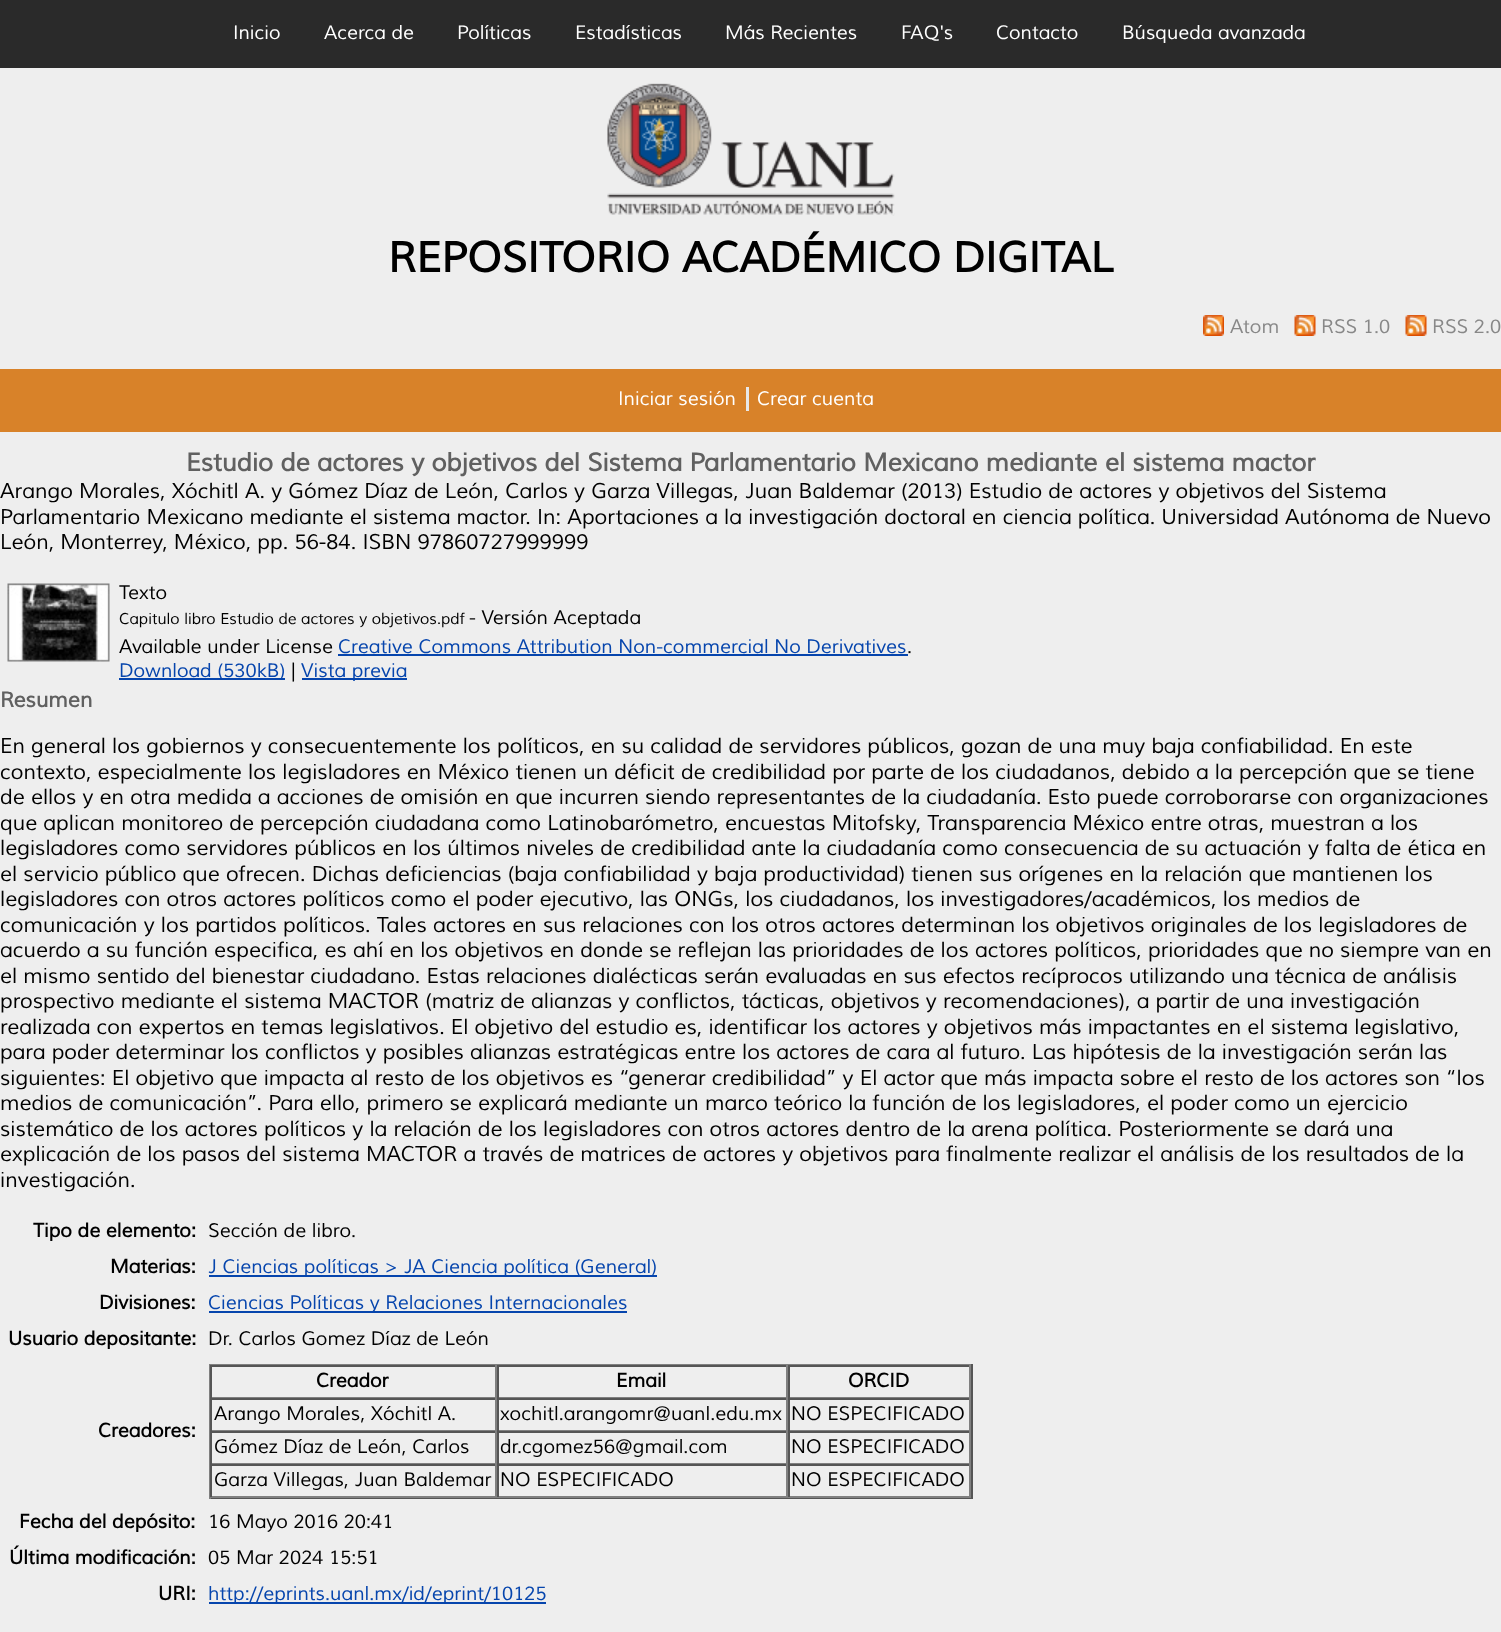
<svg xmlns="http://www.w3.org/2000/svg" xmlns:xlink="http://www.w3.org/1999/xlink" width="1501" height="1632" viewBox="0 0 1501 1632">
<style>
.cls-1{font:italic 19.1px Muli;fill:#ffffff}
.cls-2{font:italic bold 42px Muli;fill:#000000}
.cls-3{font:italic 19.2px Muli;fill:#888888}
.cls-4{font:italic 19.2px Muli;fill:#ffffff}
.cls-5{font:italic bold 24.95px Muli;fill:#606060}
.cls-6{font:italic 21px Muli;fill:#000000}
.cls-7{font:italic 19.2px Muli;fill:#000000}
.cls-8{font:italic 15.4px Muli;fill:#000000}
.cls-9{font:italic 19.2px Muli;fill:#0645ad}
.cls-10{font:italic bold 21px Muli;fill:#606060}
.cls-11{font:italic bold 19.2px Muli;fill:#000000}
</style>
<rect width="100%" height="100%" fill="#eeeeee"/>
<rect fill="#2a2a2a" x="0" y="0" width="1501" height="68"/>
<image xlink:href="image0.png" x="607" y="83" width="288" height="133"/>
<image xlink:href="image1.png" x="1203" y="315" width="21" height="21"/>
<image xlink:href="image2.png" x="1294" y="315" width="22" height="21"/>
<image xlink:href="image2.png" x="1405" y="315" width="22" height="21"/>
<rect fill="#d88229" x="0" y="369" width="1501" height="63"/>
<rect fill="#e8e8e8" x="746" y="387" width="3" height="24"/>
<image xlink:href="image3.png" x="7" y="583" width="103" height="79"/>
<rect fill="#0645ad" x="338" y="654" width="570" height="2"/>
<rect fill="#0645ad" x="119" y="678" width="166" height="2"/>
<rect fill="#0645ad" x="302" y="678" width="105" height="2"/>
<rect fill="#0645ad" x="209" y="1275" width="448" height="2"/>
<rect fill="#0645ad" x="209" y="1311" width="418" height="2"/>
<rect fill="#808080" x="209" y="1364" width="763" height="1"/>
<rect fill="#555555" x="971" y="1364" width="2" height="135"/>
<rect fill="#555555" x="209" y="1497" width="763" height="2"/>
<rect fill="#808080" x="209" y="1364" width="2" height="135"/>
<rect fill="#555555" x="210" y="1365" width="761" height="2"/>
<rect fill="#808080" x="495" y="1365" width="2" height="33"/>
<rect fill="#808080" x="210" y="1397" width="287" height="1"/>
<rect fill="#555555" x="210" y="1365" width="2" height="33"/>
<rect fill="#808080" x="786" y="1365" width="2" height="33"/>
<rect fill="#808080" x="497" y="1397" width="291" height="1"/>
<rect fill="#555555" x="497" y="1365" width="2" height="33"/>
<rect fill="#808080" x="969" y="1365" width="2" height="33"/>
<rect fill="#808080" x="788" y="1397" width="183" height="1"/>
<rect fill="#555555" x="788" y="1365" width="2" height="33"/>
<rect fill="#555555" x="210" y="1398" width="761" height="2"/>
<rect fill="#808080" x="495" y="1398" width="2" height="33"/>
<rect fill="#808080" x="210" y="1430" width="287" height="1"/>
<rect fill="#555555" x="210" y="1398" width="2" height="33"/>
<rect fill="#808080" x="786" y="1398" width="2" height="33"/>
<rect fill="#808080" x="497" y="1430" width="291" height="1"/>
<rect fill="#555555" x="497" y="1398" width="2" height="33"/>
<rect fill="#808080" x="969" y="1398" width="2" height="33"/>
<rect fill="#808080" x="788" y="1430" width="183" height="1"/>
<rect fill="#555555" x="788" y="1398" width="2" height="33"/>
<rect fill="#555555" x="210" y="1431" width="761" height="2"/>
<rect fill="#808080" x="495" y="1431" width="2" height="33"/>
<rect fill="#808080" x="210" y="1463" width="287" height="1"/>
<rect fill="#555555" x="210" y="1431" width="2" height="33"/>
<rect fill="#808080" x="786" y="1431" width="2" height="33"/>
<rect fill="#808080" x="497" y="1463" width="291" height="1"/>
<rect fill="#555555" x="497" y="1431" width="2" height="33"/>
<rect fill="#808080" x="969" y="1431" width="2" height="33"/>
<rect fill="#808080" x="788" y="1463" width="183" height="1"/>
<rect fill="#555555" x="788" y="1431" width="2" height="33"/>
<rect fill="#555555" x="210" y="1464" width="761" height="2"/>
<rect fill="#808080" x="495" y="1464" width="2" height="33"/>
<rect fill="#808080" x="210" y="1496" width="287" height="2"/>
<rect fill="#555555" x="210" y="1464" width="2" height="33"/>
<rect fill="#808080" x="786" y="1464" width="2" height="33"/>
<rect fill="#808080" x="497" y="1496" width="291" height="2"/>
<rect fill="#555555" x="497" y="1464" width="2" height="33"/>
<rect fill="#808080" x="969" y="1464" width="2" height="33"/>
<rect fill="#808080" x="788" y="1496" width="183" height="2"/>
<rect fill="#555555" x="788" y="1464" width="2" height="33"/>
<rect fill="#0645ad" x="209" y="1602" width="337" height="2"/>
<text class="cls-1" x="233" y="39">Inicio</text>
<text class="cls-1" x="324" y="39">Acerca de</text>
<text class="cls-1" x="457" y="39">Políticas</text>
<text class="cls-1" x="575" y="39">Estadísticas</text>
<text class="cls-1" x="725" y="39">Más Recientes</text>
<text class="cls-1" x="901" y="39">FAQ's</text>
<text class="cls-1" x="996" y="39">Contacto</text>
<text class="cls-1" x="1122" y="39">Búsqueda avanzada</text>
<text class="cls-2" x="388" y="272">REPOSITORIO ACADÉMICO DIGITAL</text>
<text class="cls-3" x="1230" y="333">Atom</text>
<text class="cls-3" x="1321" y="333">RSS 1.0</text>
<text class="cls-3" x="1432" y="333">RSS 2.0</text>
<text class="cls-4" x="618" y="405">Iniciar sesión</text>
<text class="cls-4" x="757" y="405">Crear cuenta</text>
<text class="cls-5" x="186" y="471">Estudio de actores y objetivos del Sistema Parlamentario Mexicano mediante el sistema mactor</text>
<text class="cls-6"><tspan x="0" y="498">Arango Morales, Xóchitl A. y Gómez Díaz de León, Carlos y Garza Villegas, Juan Baldemar (2013) Estudio de actores y objetivos del Sistema</tspan><tspan x="0" y="524">Parlamentario Mexicano mediante el sistema mactor. In: Aportaciones a la investigación doctoral en ciencia política. Universidad Autónoma de Nuevo</tspan><tspan x="0" y="549">León, Monterrey, México, pp. 56-84. ISBN 97860727999999</tspan></text>
<text class="cls-7" x="119" y="599">Texto</text>
<text class="cls-8" x="119" y="624">Capitulo libro Estudio de actores y objetivos.pdf</text>
<text class="cls-7" x="469" y="624">- Versión Aceptada</text>
<text class="cls-7" x="119" y="653">Available under License</text>
<text class="cls-9" x="338" y="653">Creative Commons Attribution Non-commercial No Derivatives</text>
<text class="cls-7" x="907" y="653">.</text>
<text class="cls-9" x="119" y="677">Download (530kB)</text>
<text class="cls-7" x="291" y="677">|</text>
<text class="cls-9" x="301" y="677">Vista previa</text>
<text class="cls-10" x="0" y="707">Resumen</text>
<text class="cls-6"><tspan x="0" y="753">En general los gobiernos y consecuentemente los políticos, en su calidad de servidores públicos, gozan de una muy baja confiabilidad. En este</tspan><tspan x="0" y="779">contexto, especialmente los legisladores en México tienen un déficit de credibilidad por parte de los ciudadanos, debido a la percepción que se tiene</tspan><tspan x="0" y="804">de ellos y en otra medida a acciones de omisión en que incurren siendo representantes de la ciudadanía. Esto puede corroborarse con organizaciones</tspan><tspan x="0" y="830">que aplican monitoreo de percepción ciudadana como Latinobarómetro, encuestas Mitofsky, Transparencia México entre otras, muestran a los</tspan><tspan x="0" y="855">legisladores como servidores públicos en los últimos niveles de credibilidad ante la ciudadanía como consecuencia de su actuación y falta de ética en</tspan><tspan x="0" y="881">el servicio público que ofrecen. Dichas deficiencias (baja confiabilidad y baja productividad) tienen sus orígenes en la relación que mantienen los</tspan><tspan x="0" y="906">legisladores con otros actores políticos como el poder ejecutivo, las ONGs, los ciudadanos, los investigadores/académicos, los medios de</tspan><tspan x="0" y="932">comunicación y los partidos políticos. Tales actores en sus relaciones con los otros actores determinan los objetivos originales de los legisladores de</tspan><tspan x="0" y="957">acuerdo a su función especifica, es ahí en los objetivos en donde se reflejan las prioridades de los actores políticos, prioridades que no siempre van en</tspan><tspan x="0" y="983">el mismo sentido del bienestar ciudadano. Estas relaciones dialécticas serán evaluadas en sus efectos recíprocos utilizando una técnica de análisis</tspan><tspan x="0" y="1008">prospectivo mediante el sistema MACTOR (matriz de alianzas y conflictos, tácticas, objetivos y recomendaciones), a partir de una investigación</tspan><tspan x="0" y="1034">realizada con expertos en temas legislativos. El objetivo del estudio es, identificar los actores y objetivos más impactantes en el sistema legislativo,</tspan><tspan x="0" y="1059">para poder determinar los conflictos y posibles alianzas estratégicas entre los actores de cara al futuro. Las hipótesis de la investigación serán las</tspan><tspan x="0" y="1085">siguientes: El objetivo que impacta al resto de los objetivos es “generar credibilidad” y El actor que más impacta sobre el resto de los actores son “los</tspan><tspan x="0" y="1110">medios de comunicación”. Para ello, primero se explicará mediante un marco teórico la función de los legisladores, el poder como un ejercicio</tspan><tspan x="0" y="1136">sistemático de los actores políticos y la relación de los legisladores con otros actores dentro de la arena política. Posteriormente se dará una</tspan><tspan x="0" y="1161">explicación de los pasos del sistema MACTOR a través de matrices de actores y objetivos para finalmente realizar el análisis de los resultados de la</tspan><tspan x="0" y="1187">investigación.</tspan></text>
<text class="cls-11" x="33" y="1237">Tipo de elemento:</text>
<text class="cls-7" x="208" y="1237">Sección de libro.</text>
<text class="cls-11" x="110" y="1273">Materias:</text>
<text class="cls-9" x="208" y="1273">J Ciencias políticas &gt; JA Ciencia política (General)</text>
<text class="cls-11" x="99" y="1309">Divisiones:</text>
<text class="cls-9" x="208" y="1309">Ciencias Políticas y Relaciones Internacionales</text>
<text class="cls-11" x="8" y="1345">Usuario depositante:</text>
<text class="cls-7" x="208" y="1345">Dr. Carlos Gomez Díaz de León</text>
<text class="cls-11" x="98" y="1437">Creadores:</text>
<text class="cls-11" x="316" y="1387">Creador</text>
<text class="cls-11" x="616" y="1387">Email</text>
<text class="cls-11" x="848" y="1387">ORCID</text>
<text class="cls-7" x="214" y="1420">Arango Morales, Xóchitl A.</text>
<text class="cls-7" x="500" y="1420">xochitl.arangomr@uanl.edu.mx</text>
<text class="cls-7" x="791" y="1420">NO ESPECIFICADO</text>
<text class="cls-7" x="214" y="1453">Gómez Díaz de León, Carlos</text>
<text class="cls-7" x="500" y="1453">dr.cgomez56@gmail.com</text>
<text class="cls-7" x="791" y="1453">NO ESPECIFICADO</text>
<text class="cls-7" x="214" y="1486">Garza Villegas, Juan Baldemar</text>
<text class="cls-7" x="500" y="1486">NO ESPECIFICADO</text>
<text class="cls-7" x="791" y="1486">NO ESPECIFICADO</text>
<text class="cls-11" x="19" y="1528">Fecha del depósito:</text>
<text class="cls-7" x="208" y="1528">16 Mayo 2016 20:41</text>
<text class="cls-11" x="9" y="1564">Última modificación:</text>
<text class="cls-7" x="208" y="1564">05 Mar 2024 15:51</text>
<text class="cls-11" x="158" y="1600">URI:</text>
<text class="cls-9" x="208" y="1600">http://eprints.uanl.mx/id/eprint/10125</text>
</svg>
